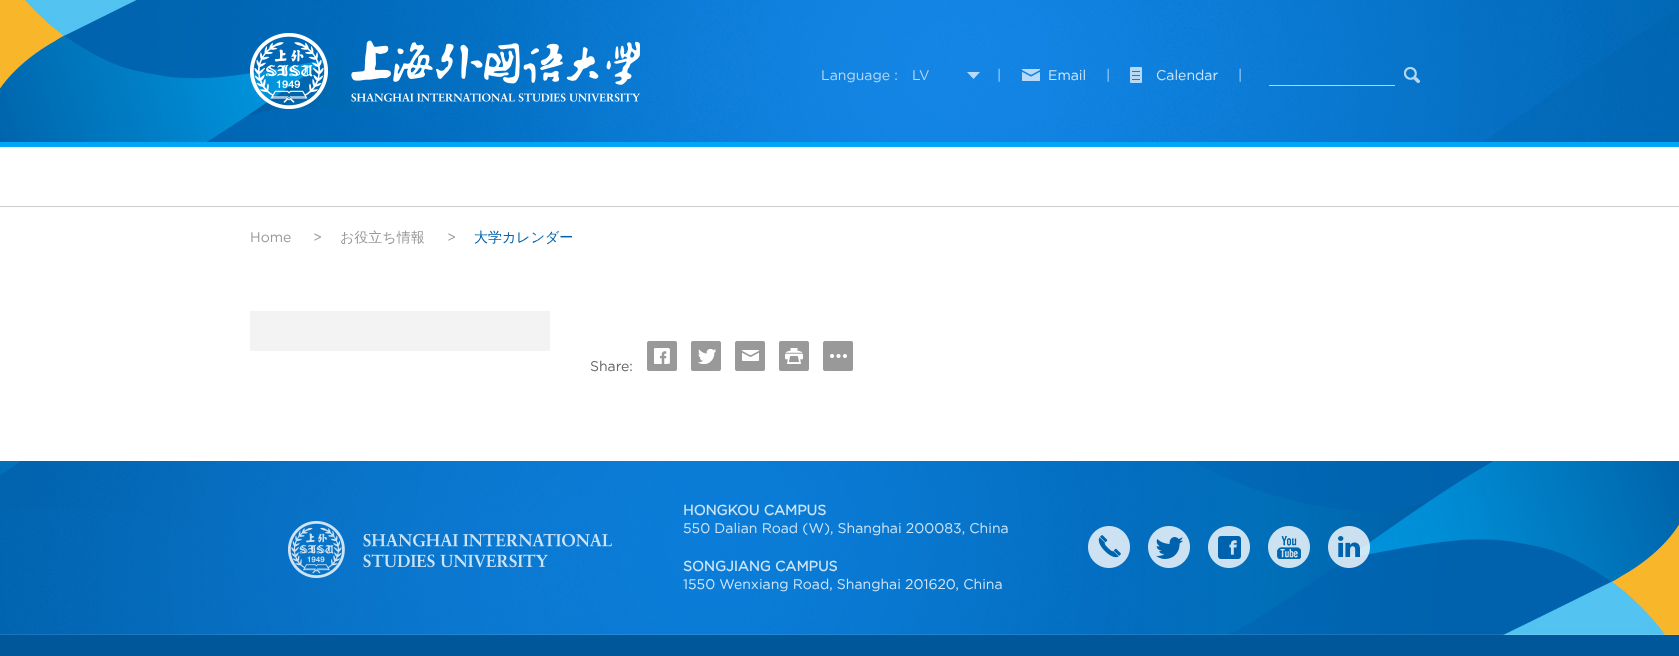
<svg xmlns="http://www.w3.org/2000/svg" xmlns:xlink="http://www.w3.org/1999/xlink" width="1679" height="656" viewBox="0 0 1679 656">
<style>
.cls-1{font:14px Gotham;fill:#b7d9f5}
.cls-2{font:14px Gotham;fill:#cee5f7}
.cls-3{font:14px Gotham;fill:#999999}
.cls-4{font:500 14px WenQuanYi Zen Hei;fill:#999999}
.cls-5{font:500 14px WenQuanYi Zen Hei;fill:#0062ac}
.cls-6{font:14px Gotham;fill:#666666}
.cls-7{font:bold 14px Gotham;fill:#cee5f7}
</style>
<rect width="100%" height="100%" fill="#ffffff"/>
<rect fill="#cccccc" x="0" y="206" width="1679" height="1"/>
<image xlink:href="image0.png" x="0" y="0" width="1679" height="142"/>
<rect fill="#01a6f6" x="0" y="142" width="1679" height="5"/>
<image xlink:href="image1.png" x="250" y="33" width="390" height="76"/>
<image xlink:href="image2.png" x="967" y="72" width="13" height="7"/>
<image xlink:href="image3.png" x="1022" y="69" width="18" height="12"/>
<image xlink:href="image4.png" x="1130" y="67" width="12" height="16"/>
<image xlink:href="image5.png" x="1404" y="67" width="16" height="16"/>
<rect fill="#ffffff" fill-opacity="0.7" x="1269" y="85" width="126" height="1"/>
<rect fill="#f3f3f3" x="250" y="311" width="300" height="40"/>
<image xlink:href="image6.png" x="647" y="341" width="30" height="30"/>
<image xlink:href="image7.png" x="691" y="341" width="30" height="30"/>
<image xlink:href="image8.png" x="735" y="341" width="30" height="30"/>
<image xlink:href="image9.png" x="779" y="341" width="30" height="30"/>
<image xlink:href="image10.png" x="823" y="341" width="30" height="30"/>
<image xlink:href="image11.png" x="0" y="461" width="1679" height="195"/>
<image xlink:href="image12.png" x="288" y="521" width="324" height="57"/>
<image xlink:href="image13.png" x="1088" y="526" width="42" height="42"/>
<image xlink:href="image14.png" x="1148" y="526" width="42" height="42"/>
<image xlink:href="image15.png" x="1208" y="526" width="42" height="42"/>
<image xlink:href="image16.png" x="1268" y="526" width="42" height="42"/>
<image xlink:href="image17.png" x="1328" y="526" width="42" height="42"/>
<text class="cls-1" x="821" y="80">Language :</text>
<text class="cls-1" x="912" y="80">LV</text>
<text class="cls-1" x="997" y="80">|</text>
<text class="cls-2" x="1048" y="80">Email</text>
<text class="cls-1" x="1106" y="80">|</text>
<text class="cls-2" x="1156" y="80">Calendar</text>
<text class="cls-1" x="1238" y="80">|</text>
<text class="cls-3" x="250" y="242">Home</text>
<text class="cls-3" x="313" y="242">&gt;</text>
<text class="cls-4" x="340" y="242">お役立ち情報</text>
<text class="cls-3" x="447" y="242">&gt;</text>
<text class="cls-5" x="474" y="242">大学カレンダー</text>
<text class="cls-6" x="590" y="371">Share:</text>
<text class="cls-7" x="683" y="515">HONGKOU CAMPUS</text>
<text class="cls-2" x="683" y="533">550 Dalian Road (W), Shanghai 200083, China</text>
<text class="cls-7" x="683" y="571">SONGJIANG CAMPUS</text>
<text class="cls-2" x="683" y="589">1550 Wenxiang Road, Shanghai 201620, China</text>
</svg>
